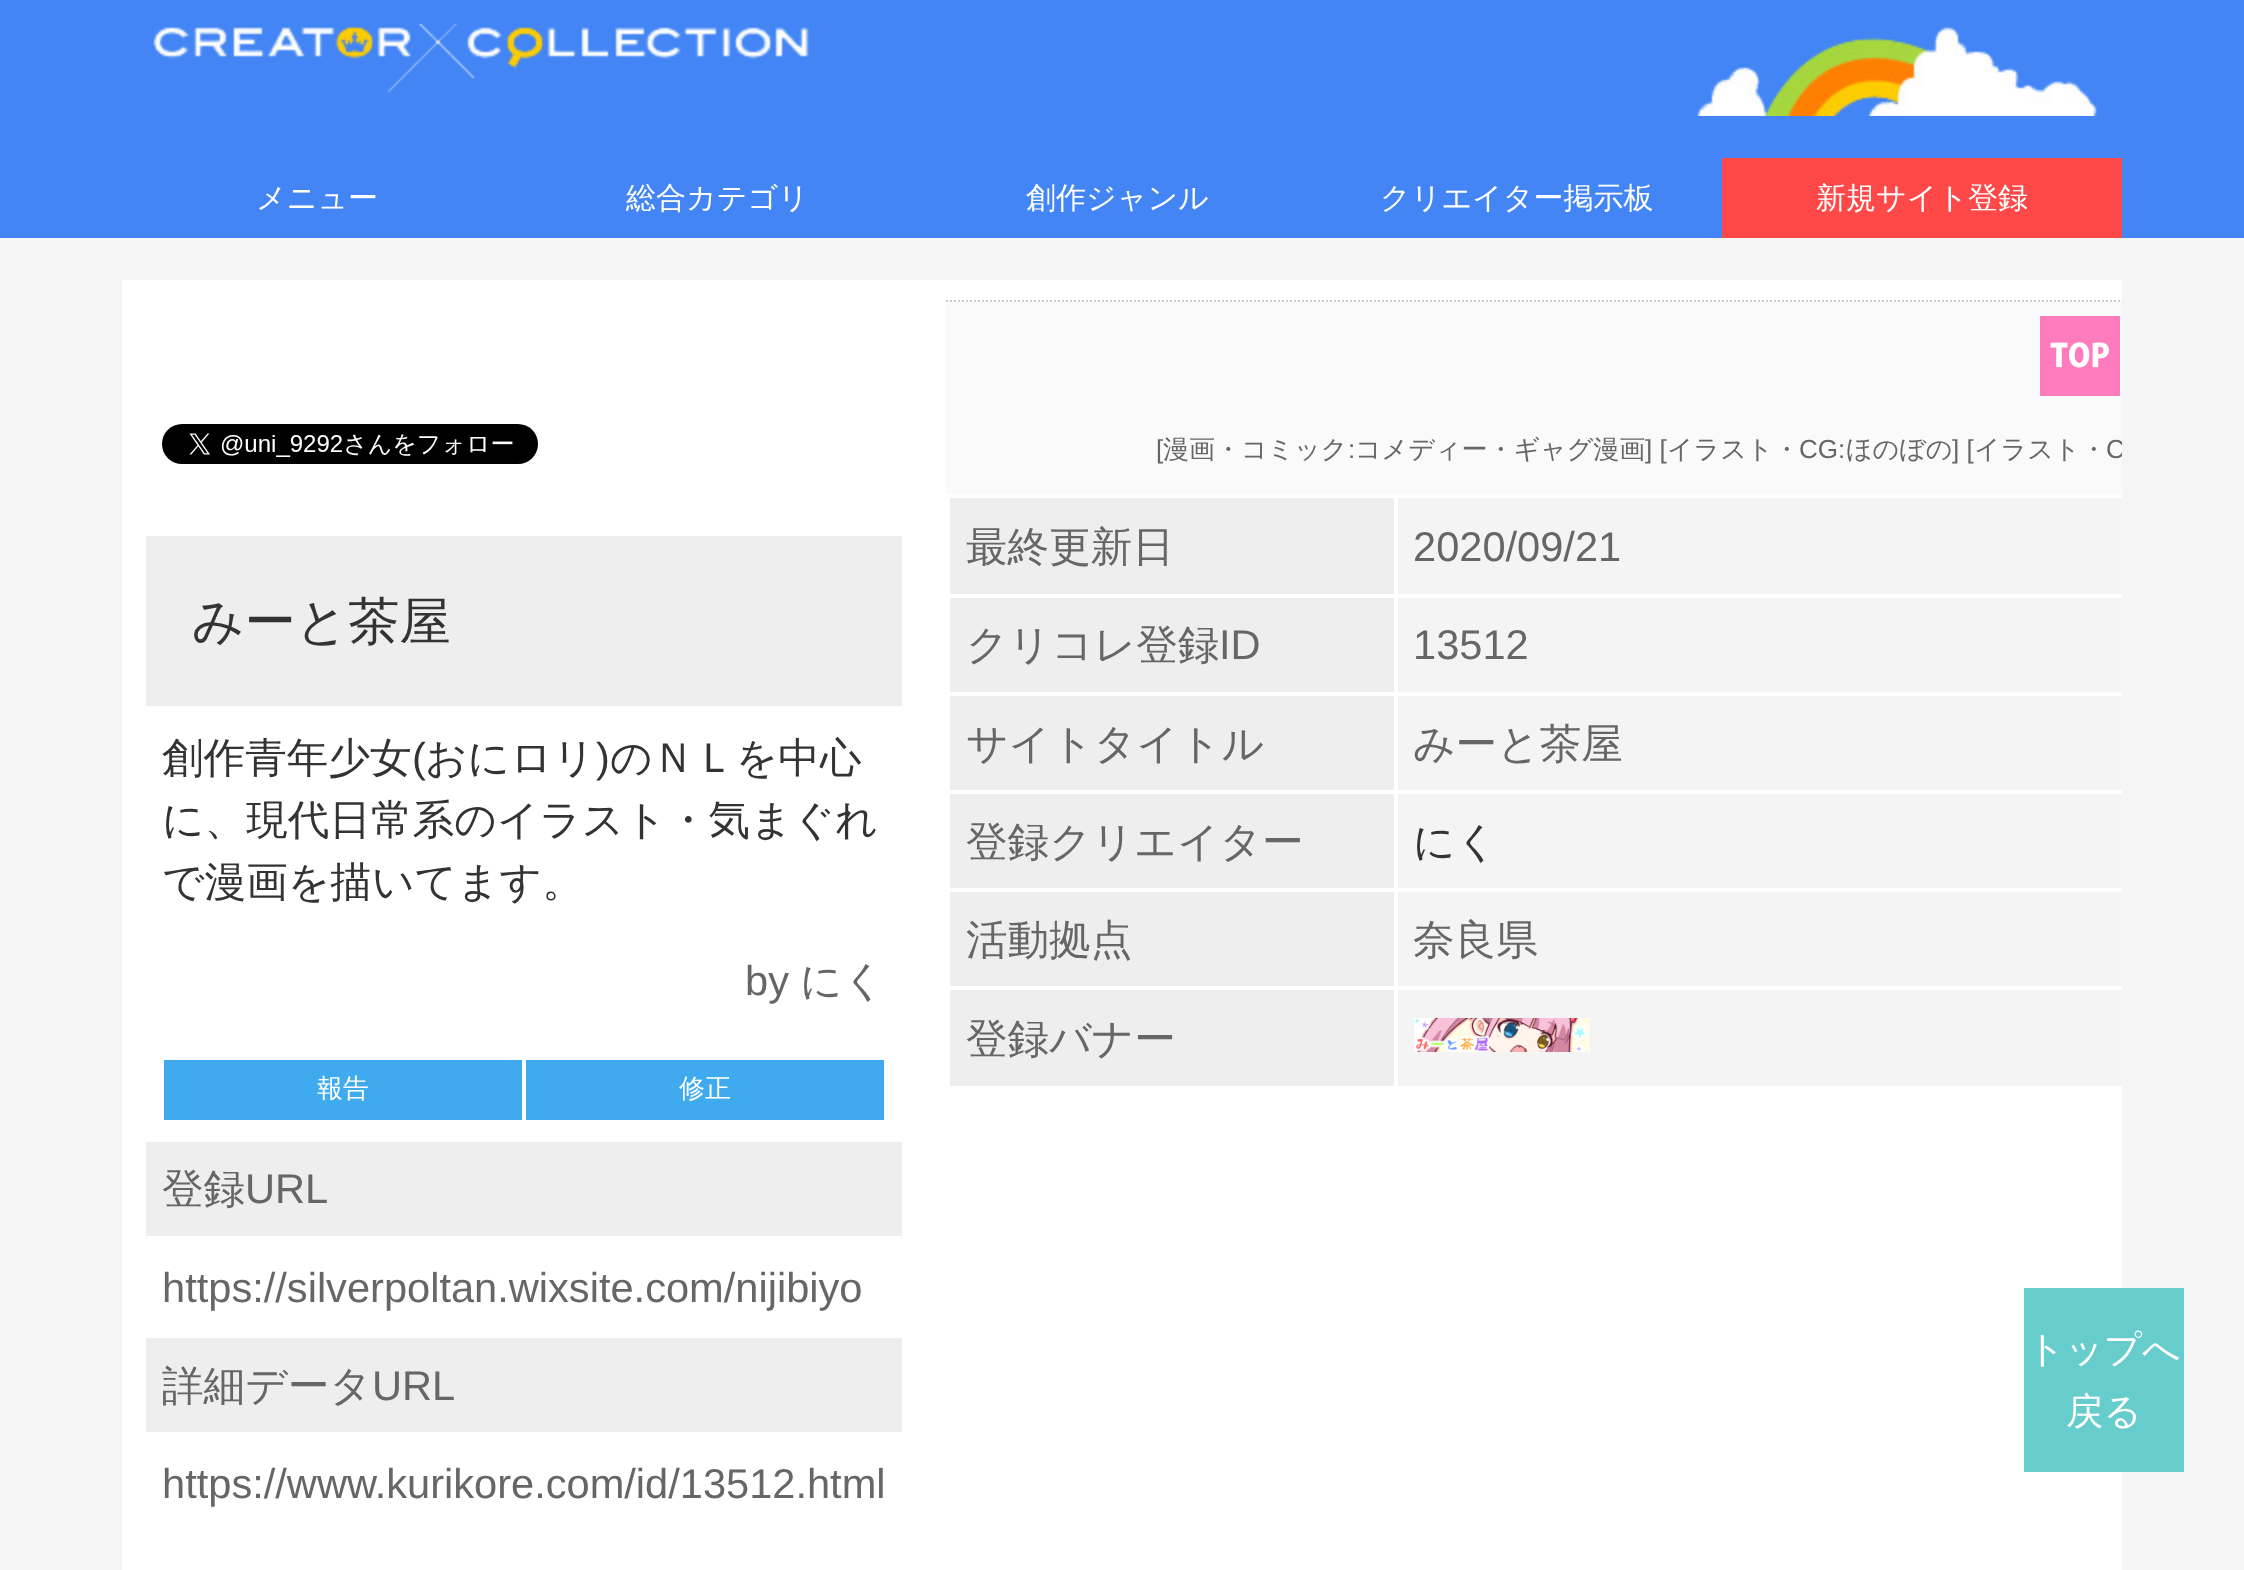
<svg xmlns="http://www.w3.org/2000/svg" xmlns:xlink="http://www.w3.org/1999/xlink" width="2244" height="1570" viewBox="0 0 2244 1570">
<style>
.cls-1{font:500 30px WenQuanYi Zen Hei;fill:#ffffff}
.cls-2{font:500 51.25px WenQuanYi Zen Hei;fill:#333333}
.cls-3{font:500 41.6px WenQuanYi Zen Hei;fill:#333333}
.cls-4{font:41.6px Liberation Sans;fill:#333333}
.cls-5{font:41.6px Liberation Sans;fill:#666666}
.cls-6{font:500 41.6px WenQuanYi Zen Hei;fill:#666666}
.cls-7{font:500 26px WenQuanYi Zen Hei;fill:#ffffff}
.cls-8{font:26px Liberation Sans;fill:#666666}
.cls-9{font:500 26px WenQuanYi Zen Hei;fill:#666666}
.cls-10{font:500 37.5px WenQuanYi Zen Hei;fill:#ffffff}
</style>
<defs>
<clipPath id="clip1"><rect x="122" y="280" width="2000" height="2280"/></clipPath>
</defs>
<rect width="100%" height="100%" fill="#f5f5f5"/>
<rect fill="#4385f5" x="0" y="0" width="2244" height="238"/>
<rect fill="#ffffff" x="122" y="280" width="2000" height="1290"/>
<image xlink:href="image0.png" x="153" y="24" width="656" height="69"/>
<image xlink:href="image1.png" x="1697" y="27" width="400" height="89"/>
<rect fill="#ff4848" x="1722" y="158" width="400" height="80"/>
<image xlink:href="image2.png" x="162" y="424" width="376" height="40"/>
<rect fill="#eeeeee" x="146" y="536" width="756" height="170"/>
<rect fill="#40aaef" x="164" y="1060" width="358" height="60"/>
<rect fill="#40aaef" x="526" y="1060" width="358" height="60"/>
<rect fill="#eeeeee" x="146" y="1142" width="756" height="94"/>
<rect fill="#eeeeee" x="146" y="1338" width="756" height="94"/>
<rect fill="#fafafa" x="946" y="300" width="1176" height="194"/>
<g clip-path="url(#clip1)">
<path fill="none" stroke="#cccccc" stroke-width="2" stroke-dasharray="2 2" d="M946 301H2226"/>
</g>
<image xlink:href="image3.png" x="2040" y="316" width="80" height="80"/>
<rect fill="#eeeeee" x="950" y="498" width="444" height="96"/>
<rect fill="#f4f4f4" x="1398" y="498" width="724" height="96"/>
<rect fill="#eeeeee" x="950" y="598" width="444" height="94"/>
<rect fill="#f4f4f4" x="1398" y="598" width="724" height="94"/>
<rect fill="#eeeeee" x="950" y="696" width="444" height="94"/>
<rect fill="#f4f4f4" x="1398" y="696" width="724" height="94"/>
<rect fill="#eeeeee" x="950" y="794" width="444" height="94"/>
<rect fill="#f4f4f4" x="1398" y="794" width="724" height="94"/>
<rect fill="#eeeeee" x="950" y="892" width="444" height="94"/>
<rect fill="#f4f4f4" x="1398" y="892" width="724" height="94"/>
<rect fill="#eeeeee" x="950" y="990" width="444" height="96"/>
<rect fill="#f4f4f4" x="1398" y="990" width="724" height="96"/>
<image xlink:href="image4.png" x="1414" y="1018" width="176" height="34"/>
<rect fill="#66cccc" x="2024" y="1288" width="160" height="184"/>
<text class="cls-1" x="256" y="208">メニュー</text>
<text class="cls-1" x="626" y="208">総合カテゴリ</text>
<text class="cls-1" x="1026" y="208">創作ジャンル</text>
<text class="cls-1" x="1380" y="208">クリエイター掲示板</text>
<text class="cls-1" x="1816" y="208">新規サイト登録</text>
<text class="cls-2" x="192" y="639">みーと茶屋</text>
<text class="cls-3" x="162" y="772">創作青年少女</text>
<text class="cls-4" x="412" y="772">(</text>
<text class="cls-3" x="425" y="772">おにロリ</text>
<text class="cls-4" x="596" y="772">)</text>
<text class="cls-3" x="610" y="772">のＮＬを中心</text>
<text class="cls-3"><tspan x="162" y="834">に、現代日常系のイラスト・気まぐれ</tspan><tspan x="162" y="896">で漫画を描いてます。</tspan></text>
<text class="cls-5" x="745" y="995">by</text>
<text class="cls-6" x="800" y="995">にく</text>
<text class="cls-7" x="317" y="1097">報告</text>
<text class="cls-7" x="679" y="1097">修正</text>
<text class="cls-6" x="162" y="1203">登録</text>
<text class="cls-5" x="245" y="1203">URL</text>
<text class="cls-5" x="162" y="1302">https://silverpoltan.wixsite.com/nijibiyo</text>
<text class="cls-6" x="162" y="1400">詳細データ</text>
<text class="cls-5" x="372" y="1400">URL</text>
<text class="cls-5" x="162" y="1498">https://www.kurikore.com/id/13512.html</text>
<text class="cls-8" x="1156" y="458">[</text>
<text class="cls-9" x="1163" y="458">漫画・コミック</text>
<text class="cls-8" x="1348" y="458">:</text>
<text class="cls-9" x="1355" y="458">コメディー・ギャグ漫画</text>
<text class="cls-8" x="1645" y="458">] [</text>
<text class="cls-9" x="1667" y="458">イラスト・</text>
<text class="cls-8" x="1799" y="458">CG:</text>
<text class="cls-9" x="1846" y="458">ほのぼの</text>
<text class="cls-8" x="1952" y="458">] [</text>
<text class="cls-9" x="1974" y="458">イラスト・</text>
<g clip-path="url(#clip1)">
<text class="cls-8" x="2106" y="458">C</text>
</g>
<text class="cls-6" x="966" y="561">最終更新日</text>
<text class="cls-5" x="1413" y="561">2020/09/21</text>
<text class="cls-6" x="966" y="659">クリコレ登録</text>
<text class="cls-5" x="1219" y="659">ID</text>
<text class="cls-5" x="1413" y="659">13512</text>
<text class="cls-6" x="966" y="758">サイトタイトル</text>
<text class="cls-6" x="1413" y="758">みーと茶屋</text>
<text class="cls-6" x="966" y="856">登録クリエイター</text>
<text class="cls-3" x="1413" y="856">にく</text>
<text class="cls-6" x="966" y="954">活動拠点</text>
<text class="cls-6" x="1413" y="954">奈良県</text>
<text class="cls-6" x="966" y="1053">登録バナー</text>
<text class="cls-10" x="2027" y="1362">トップへ</text>
<text class="cls-10" x="2066" y="1424">戻る</text>
</svg>
